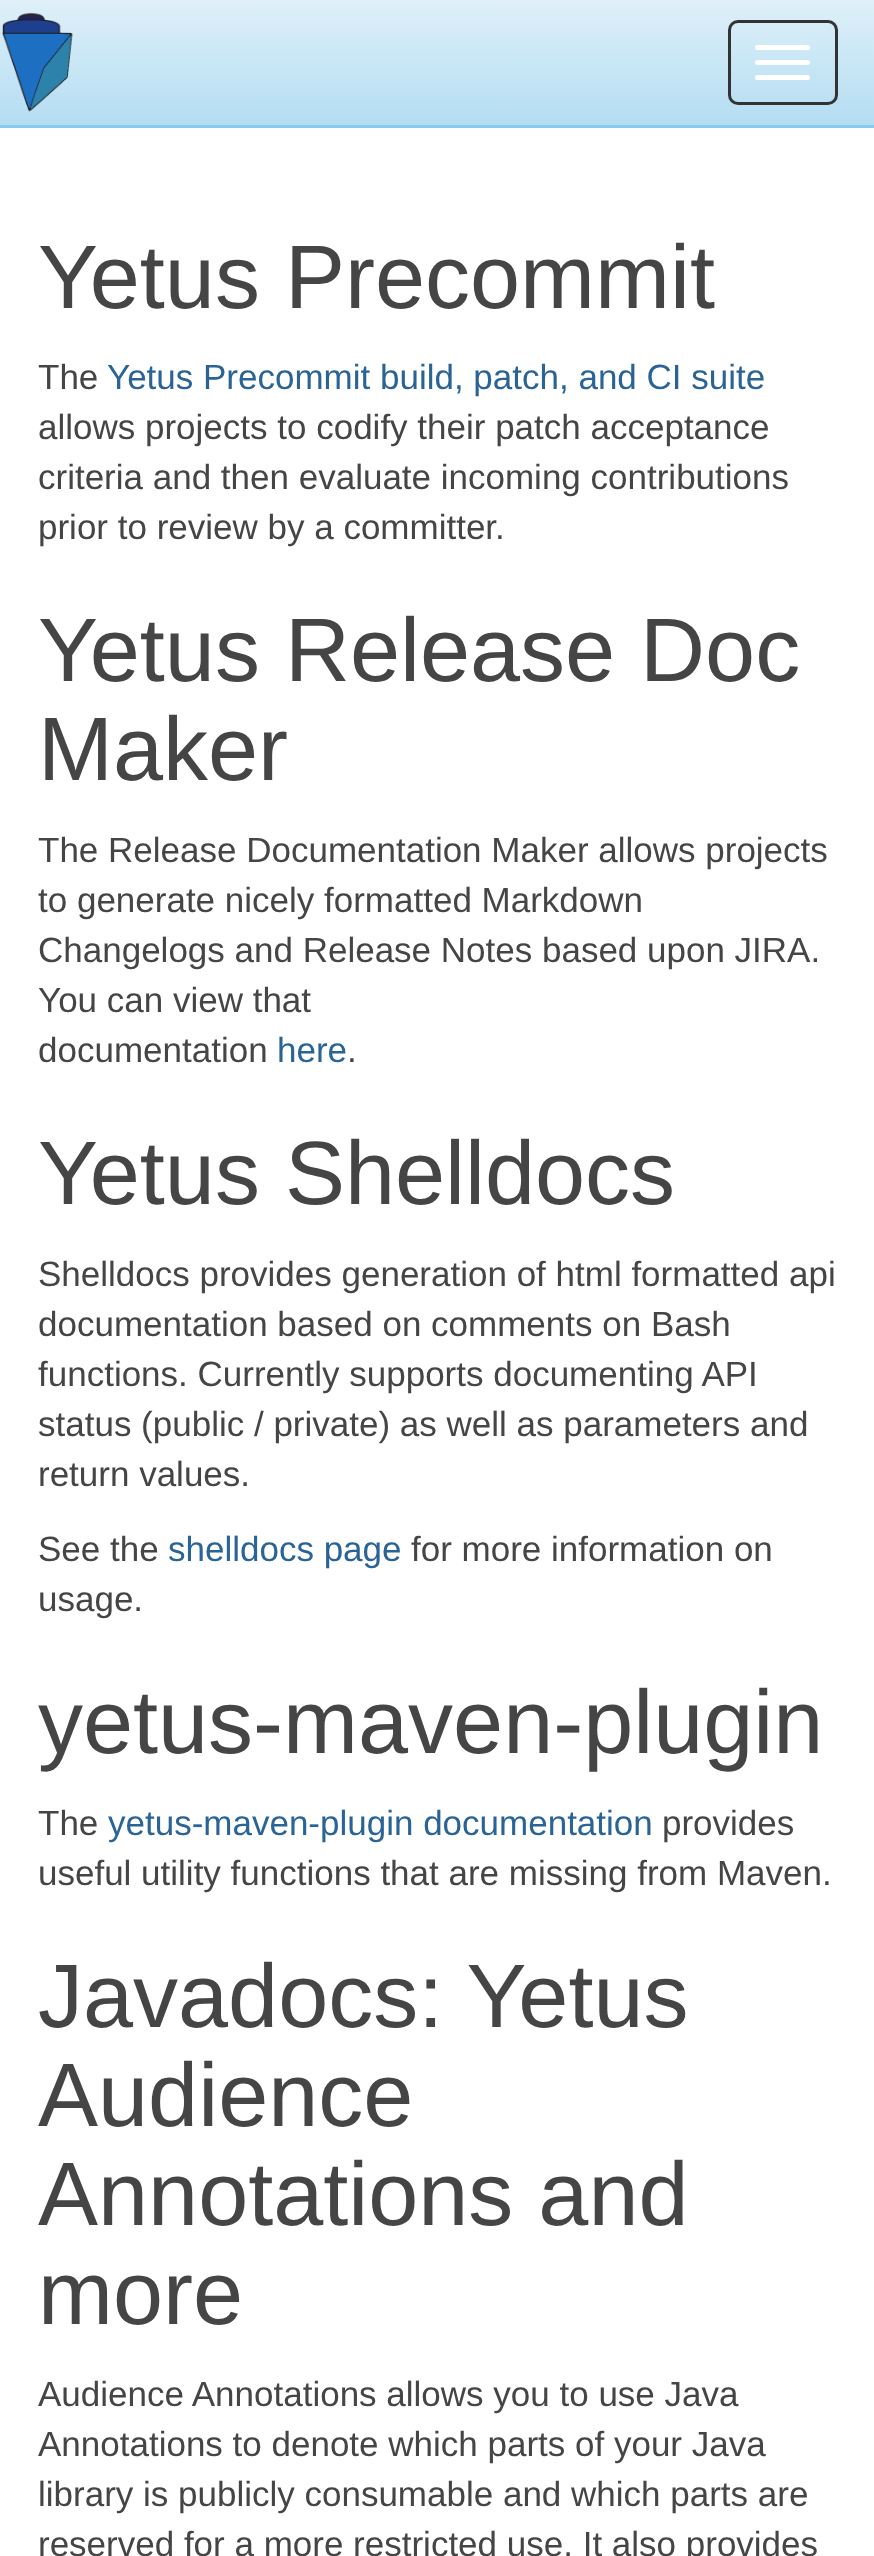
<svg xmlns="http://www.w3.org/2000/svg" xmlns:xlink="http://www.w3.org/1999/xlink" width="874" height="2556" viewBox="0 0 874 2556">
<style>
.cls-1{font:90px Liberation Sans;fill:#454545}
.cls-2{font:35px Liberation Sans;fill:#454545}
.cls-3{font:35px Liberation Sans;fill:#2a6496}
</style>
<defs>
<linearGradient id="g1" gradientUnits="userSpaceOnUse" x1="438" y1="0" x2="438" y2="125"><stop offset="0" stop-color="#dff0f9"/><stop offset="1" stop-color="#b3ddf2"/></linearGradient>
</defs>
<rect width="100%" height="100%" fill="#ffffff"/>
<rect fill="url(#g1)" x="0" y="0" width="874" height="125"/>
<rect fill="#87caeb" x="0" y="125" width="874" height="3"/>
<image xlink:href="image0.png" x="0" y="12" width="73" height="101"/>
<rect fill="none" stroke="#333333" stroke-width="3" x="729.5" y="21.5" width="107" height="82" rx="8.5"/>
<rect fill="#ffffff" x="755" y="45" width="55" height="5" rx="2.5"/>
<rect fill="#ffffff" x="755" y="60" width="55" height="5" rx="2.5"/>
<rect fill="#ffffff" x="755" y="75" width="55" height="5" rx="2.5"/>
<text class="cls-1" x="38" y="308">Yetus Precommit</text>
<text class="cls-2" x="38" y="389">The</text>
<text class="cls-3" x="107" y="389">Yetus Precommit build, patch, and CI suite</text>
<text class="cls-2"><tspan x="38" y="439">allows projects to codify their patch acceptance</tspan><tspan x="38" y="489">criteria and then evaluate incoming contributions</tspan><tspan x="38" y="539">prior to review by a committer.</tspan></text>
<text class="cls-1"><tspan x="38" y="681">Yetus Release Doc</tspan><tspan x="38" y="780">Maker</tspan></text>
<text class="cls-2"><tspan x="38" y="862">The Release Documentation Maker allows projects</tspan><tspan x="38" y="912">to generate nicely formatted Markdown</tspan><tspan x="38" y="962">Changelogs and Release Notes based upon JIRA.</tspan><tspan x="38" y="1012">You can view that</tspan><tspan x="38" y="1062">documentation</tspan></text>
<text class="cls-3" x="277" y="1062">here</text>
<text class="cls-2" x="347" y="1062">.</text>
<text class="cls-1" x="38" y="1204">Yetus Shelldocs</text>
<text class="cls-2"><tspan x="38" y="1286">Shelldocs provides generation of html formatted api</tspan><tspan x="38" y="1336">documentation based on comments on Bash</tspan><tspan x="38" y="1386">functions. Currently supports documenting API</tspan><tspan x="38" y="1436">status (public / private) as well as parameters and</tspan><tspan x="38" y="1486">return values.</tspan></text>
<text class="cls-2" x="38" y="1561">See the</text>
<text class="cls-3" x="168" y="1561">shelldocs page</text>
<text class="cls-2" x="411" y="1561">for more information on</text>
<text class="cls-2" x="38" y="1611">usage.</text>
<text class="cls-1" x="38" y="1753">yetus-maven-plugin</text>
<text class="cls-2" x="38" y="1835">The</text>
<text class="cls-3" x="108" y="1835">yetus-maven-plugin documentation</text>
<text class="cls-2" x="662" y="1835">provides</text>
<text class="cls-2" x="38" y="1885">useful utility functions that are missing from Maven.</text>
<text class="cls-1"><tspan x="38" y="2027">Javadocs: Yetus</tspan><tspan x="38" y="2126">Audience</tspan><tspan x="38" y="2225">Annotations and</tspan><tspan x="38" y="2324">more</tspan></text>
<text class="cls-2"><tspan x="38" y="2406">Audience Annotations allows you to use Java</tspan><tspan x="38" y="2456">Annotations to denote which parts of your Java</tspan><tspan x="38" y="2506">library is publicly consumable and which parts are</tspan><tspan x="38" y="2556">reserved for a more restricted use. It also provides</tspan></text>
</svg>
